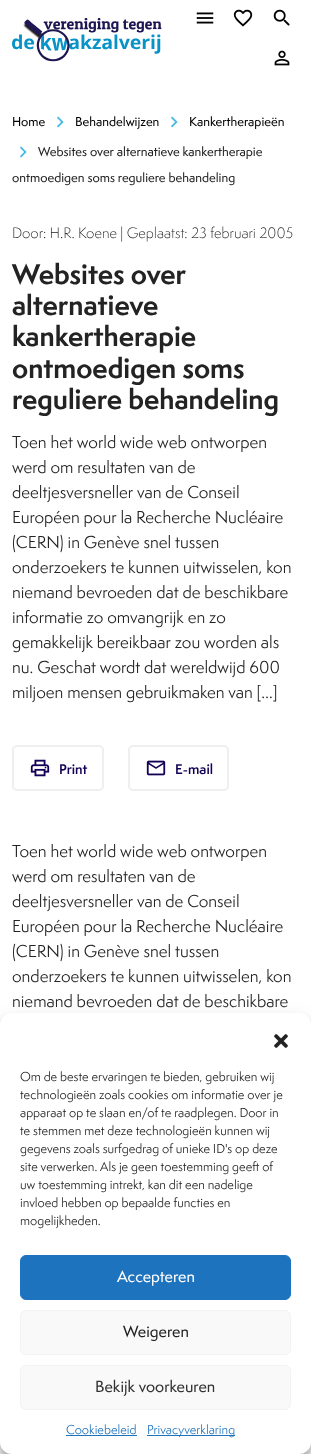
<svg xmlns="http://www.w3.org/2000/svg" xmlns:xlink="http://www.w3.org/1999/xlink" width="311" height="1454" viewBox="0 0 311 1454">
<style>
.cls-1{font:500 12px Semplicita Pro;fill:#000000}
.cls-2{font:500 12px Semplicita Pro;fill:#232323}
.cls-3{font:300 14px Semplicita Pro;fill:#232323}
.cls-4{font:bold 26px Semplicita Pro;fill:#232323}
.cls-5{font:16px Semplicita Pro;fill:#232323}
.cls-6{font:600 13px Semplicita Pro;fill:#130056}
.cls-7{font:12px Semplicita Pro;fill:#232323}
.cls-8{font:500 15px Semplicita Pro;fill:#ffffff}
.cls-9{font:500 15px Semplicita Pro;fill:#232323}
.cls-10{font:500 15px Semplicita Pro;fill:#333333}
.cls-11{font:12px Semplicita Pro;fill:#1e73be}
</style>
<rect width="100%" height="100%" fill="#ffffff"/>
<image xlink:href="image0.png" x="12" y="18" width="150" height="44"/>
<image xlink:href="image1.png" x="196" y="12" width="18" height="12"/>
<image xlink:href="image2.png" x="233" y="9" width="20" height="18"/>
<image xlink:href="image3.png" x="273" y="9" width="17" height="17"/>
<image xlink:href="image4.png" x="274" y="50" width="16" height="16"/>
<image xlink:href="image5.png" x="57" y="116" width="7" height="12"/>
<image xlink:href="image5.png" x="171" y="116" width="7" height="12"/>
<image xlink:href="image5.png" x="20" y="146" width="7" height="12"/>
<rect fill="none" stroke="#efefef" stroke-width="2" x="13" y="746" width="90" height="44" rx="4"/>
<image xlink:href="image6.png" x="30" y="759" width="20" height="18"/>
<rect fill="none" stroke="#efefef" stroke-width="2" x="129" y="746" width="99" height="44" rx="4"/>
<image xlink:href="image7.png" x="146" y="760" width="20" height="16"/>
<rect fill="#000000" fill-opacity="0.23" filter="blur(3px)" x="0" y="1019" width="311" height="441" rx="12"/>
<rect fill="#000000" fill-opacity="0.19" filter="blur(10px)" x="0" y="1023" width="311" height="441" rx="12"/>
<rect fill="#ffffff" x="0" y="1013" width="311" height="441" rx="12"/>
<image xlink:href="image8.png" x="274" y="1034" width="14" height="14"/>
<rect fill="#1e73be" stroke="#1e73be" x="20.5" y="1255.5" width="270" height="44" rx="5.5"/>
<rect fill="#f9f9f9" stroke="#f2f2f2" x="20.5" y="1310.5" width="270" height="44" rx="5.5"/>
<rect fill="#f9f9f9" stroke="#f2f2f2" x="20.5" y="1365.5" width="270" height="44" rx="5.5"/>
<rect fill="#1e73be" x="66" y="1435" width="71" height="1"/>
<rect fill="#1e73be" x="147" y="1435" width="88" height="1"/>
<text class="cls-1" x="12" y="126">Home</text>
<text class="cls-1" x="75" y="126">Behandelwijzen</text>
<text class="cls-1" x="189" y="126">Kankertherapieën</text>
<text class="cls-2" x="38" y="156">Websites over alternatieve kankertherapie</text>
<text class="cls-2" x="12" y="182">ontmoedigen soms reguliere behandeling</text>
<text class="cls-3" x="12" y="238">Door: H.R. Koene | Geplaatst: 23 februari 2005</text>
<text class="cls-4"><tspan x="12" y="284">Websites over</tspan><tspan x="12" y="315">alternatieve</tspan><tspan x="12" y="346">kankertherapie</tspan><tspan x="12" y="378">ontmoedigen soms</tspan><tspan x="12" y="409">reguliere behandeling</tspan></text>
<text class="cls-5"><tspan x="12" y="448">Toen het world wide web ontworpen</tspan><tspan x="12" y="473">werd om resultaten van de</tspan><tspan x="12" y="498">deeltjesversneller van de Conseil</tspan><tspan x="12" y="523">Européen pour la Recherche Nucléaire</tspan><tspan x="12" y="548">(CERN) in Genève snel tussen</tspan><tspan x="12" y="573">onderzoekers te kunnen uitwisselen, kon</tspan><tspan x="12" y="598">niemand bevroeden dat de beschikbare</tspan><tspan x="12" y="623">informatie zo omvangrijk en zo</tspan><tspan x="12" y="648">gemakkelijk bereikbaar zou worden als</tspan><tspan x="12" y="673">nu. Geschat wordt dat wereldwijd 600</tspan><tspan x="12" y="698">miljoen mensen gebruikmaken van […]</tspan></text>
<text class="cls-6" x="59" y="774">Print</text>
<text class="cls-6" x="175" y="774">E-mail</text>
<text class="cls-5"><tspan x="12" y="857">Toen het world wide web ontworpen</tspan><tspan x="12" y="882">werd om resultaten van de</tspan><tspan x="12" y="907">deeltjesversneller van de Conseil</tspan><tspan x="12" y="932">Européen pour la Recherche Nucléaire</tspan><tspan x="12" y="957">(CERN) in Genève snel tussen</tspan><tspan x="12" y="982">onderzoekers te kunnen uitwisselen, kon</tspan><tspan x="12" y="1007">niemand bevroeden dat de beschikbare</tspan></text>
<text class="cls-7"><tspan x="20" y="1081">Om de beste ervaringen te bieden, gebruiken wij</tspan><tspan x="20" y="1099">technologieën zoals cookies om informatie over je</tspan><tspan x="20" y="1117">apparaat op te slaan en/of te raadplegen. Door in</tspan><tspan x="20" y="1135">te stemmen met deze technologieën kunnen wij</tspan><tspan x="20" y="1153">gegevens zoals surfgedrag of unieke ID's op deze</tspan><tspan x="20" y="1171">site verwerken. Als je geen toestemming geeft of</tspan><tspan x="20" y="1189">uw toestemming intrekt, kan dit een nadelige</tspan><tspan x="20" y="1207">invloed hebben op bepaalde functies en</tspan><tspan x="20" y="1225">mogelijkheden.</tspan></text>
<text class="cls-8" x="117" y="1282">Accepteren</text>
<text class="cls-9" x="123" y="1337">Weigeren</text>
<text class="cls-10" x="95" y="1392">Bekijk voorkeuren</text>
<text class="cls-11" x="66" y="1434">Cookiebeleid</text>
<text class="cls-11" x="147" y="1434">Privacyverklaring</text>
</svg>
